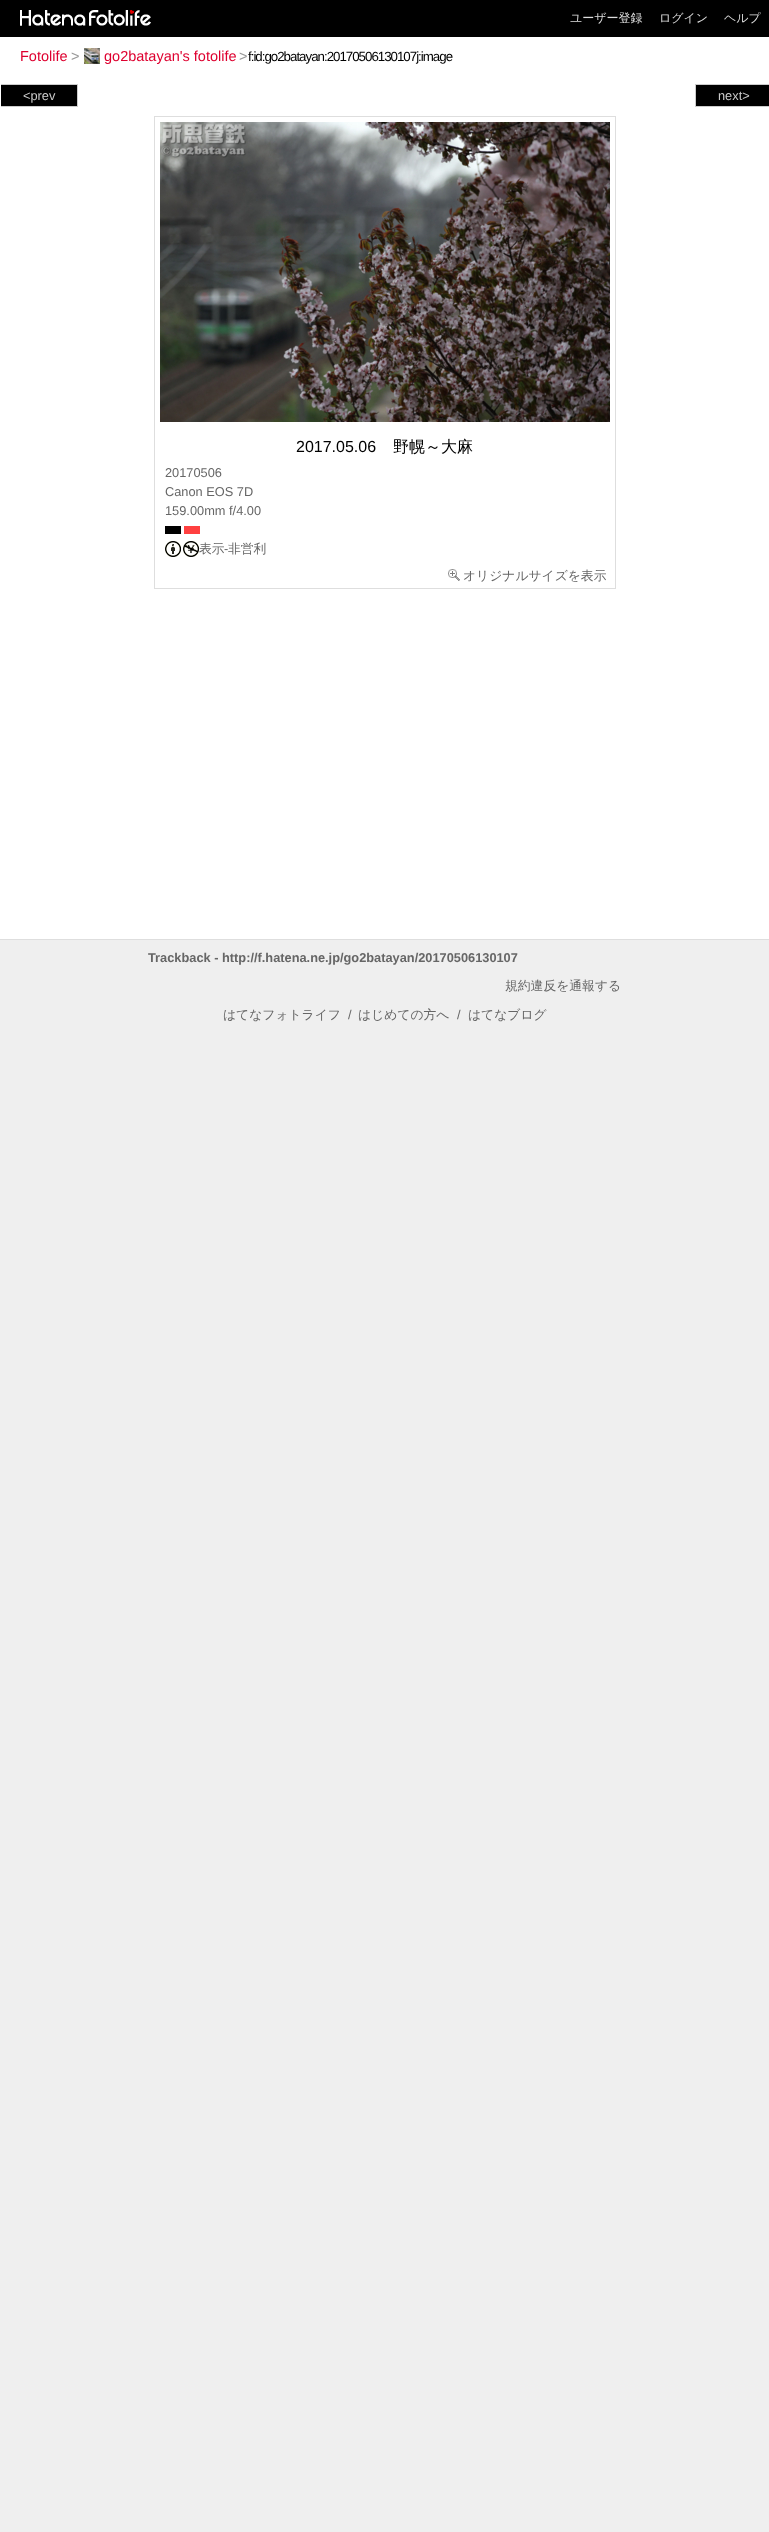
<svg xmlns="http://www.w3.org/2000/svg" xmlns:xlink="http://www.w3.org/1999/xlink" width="769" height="2532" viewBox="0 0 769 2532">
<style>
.cls-1{font:500 12px WenQuanYi Zen Hei;fill:#dddddd}
.cls-2{font:14.5px Liberation Sans;fill:#de002f}
.cls-3{font:14.5px Liberation Sans;fill:#999999}
.cls-4{font:13.3px Liberation Sans;letter-spacing:-1px;fill:#000000}
.cls-5{font:12.8px Liberation Sans;fill:#cccccc}
.cls-6{font:16px Liberation Sans;fill:#000000}
.cls-7{font:500 16px WenQuanYi Zen Hei;fill:#000000}
.cls-8{font:12.8px Liberation Sans;fill:#666666}
.cls-9{font:500 12.8px WenQuanYi Zen Hei;fill:#666666}
.cls-10{font:bold 12.8px Liberation Sans;fill:#666666}
</style>
<rect width="100%" height="100%" fill="#efefef"/>
<rect fill="#000000" x="0" y="0" width="769" height="37"/>
<image xlink:href="image0.png" x="20" y="10" width="66" height="16"/>
<image xlink:href="image1.png" x="89" y="10" width="62" height="16"/>
<rect fill="#ffffff" x="0" y="37" width="769" height="902"/>
<image xlink:href="image2.png" x="84" y="48" width="16" height="16"/>
<rect fill="#dedede" x="0" y="939" width="769" height="1"/>
<rect fill="#000000" x="1" y="85" width="76" height="21"/>
<rect fill="#cccccc" x="1" y="84" width="77" height="1"/>
<rect fill="#cccccc" x="77" y="84" width="1" height="23"/>
<rect fill="#cccccc" x="1" y="106" width="77" height="1"/>
<rect fill="#000000" x="696" y="85" width="73" height="21"/>
<rect fill="#cccccc" x="695" y="84" width="74" height="1"/>
<rect fill="#cccccc" x="695" y="106" width="74" height="1"/>
<rect fill="#cccccc" x="695" y="84" width="1" height="23"/>
<rect fill="none" stroke="#dedede" x="154.5" y="116.5" width="461" height="472"/>
<image xlink:href="image3.png" x="160" y="122" width="450" height="300"/>
<rect fill="#000000" x="165" y="526" width="16" height="8"/>
<rect fill="#ff4040" x="184" y="526" width="16" height="8"/>
<image xlink:href="image4.png" x="165" y="541" width="34" height="16"/>
<image xlink:href="image5.png" x="448" y="569" width="12" height="12"/>
<text class="cls-1" x="570" y="22">ユーザー登録</text>
<text class="cls-1" x="659" y="22">ログイン</text>
<text class="cls-1" x="724" y="22">ヘルプ</text>
<text class="cls-2" x="20" y="61">Fotolife</text>
<text class="cls-3" x="71" y="61">&gt;</text>
<text class="cls-2" x="104" y="61">go2batayan's fotolife</text>
<text class="cls-3" x="239" y="61">&gt;</text>
<text class="cls-4" x="248" y="61">f:id:go2batayan:20170506130107j:image</text>
<text class="cls-5" x="23" y="100">&lt;prev</text>
<text class="cls-5" x="718" y="100">next&gt;</text>
<text class="cls-6" x="296" y="452">2017.05.06</text>
<text class="cls-7" x="393" y="452">野幌～大麻</text>
<text class="cls-8"><tspan x="165" y="477">20170506</tspan><tspan x="165" y="496">Canon EOS 7D</tspan><tspan x="165" y="515">159.00mm f/4.00</tspan></text>
<text class="cls-9" x="199" y="553">表示</text>
<text class="cls-8" x="224" y="553">-</text>
<text class="cls-9" x="228" y="553">非営利</text>
<text class="cls-9" x="463" y="580">オリジナルサイズを表示</text>
<text class="cls-10" x="148" y="962">Trackback - http://f.hatena.ne.jp/go2batayan/20170506130107</text>
<text class="cls-9" x="505" y="990">規約違反を通報する</text>
<text class="cls-9" x="223" y="1019">はてなフォトライフ</text>
<text class="cls-8" x="348" y="1019">/</text>
<text class="cls-9" x="358" y="1019">はじめての方へ</text>
<text class="cls-8" x="457" y="1019">/</text>
<text class="cls-9" x="468" y="1019">はてなブログ</text>
</svg>
